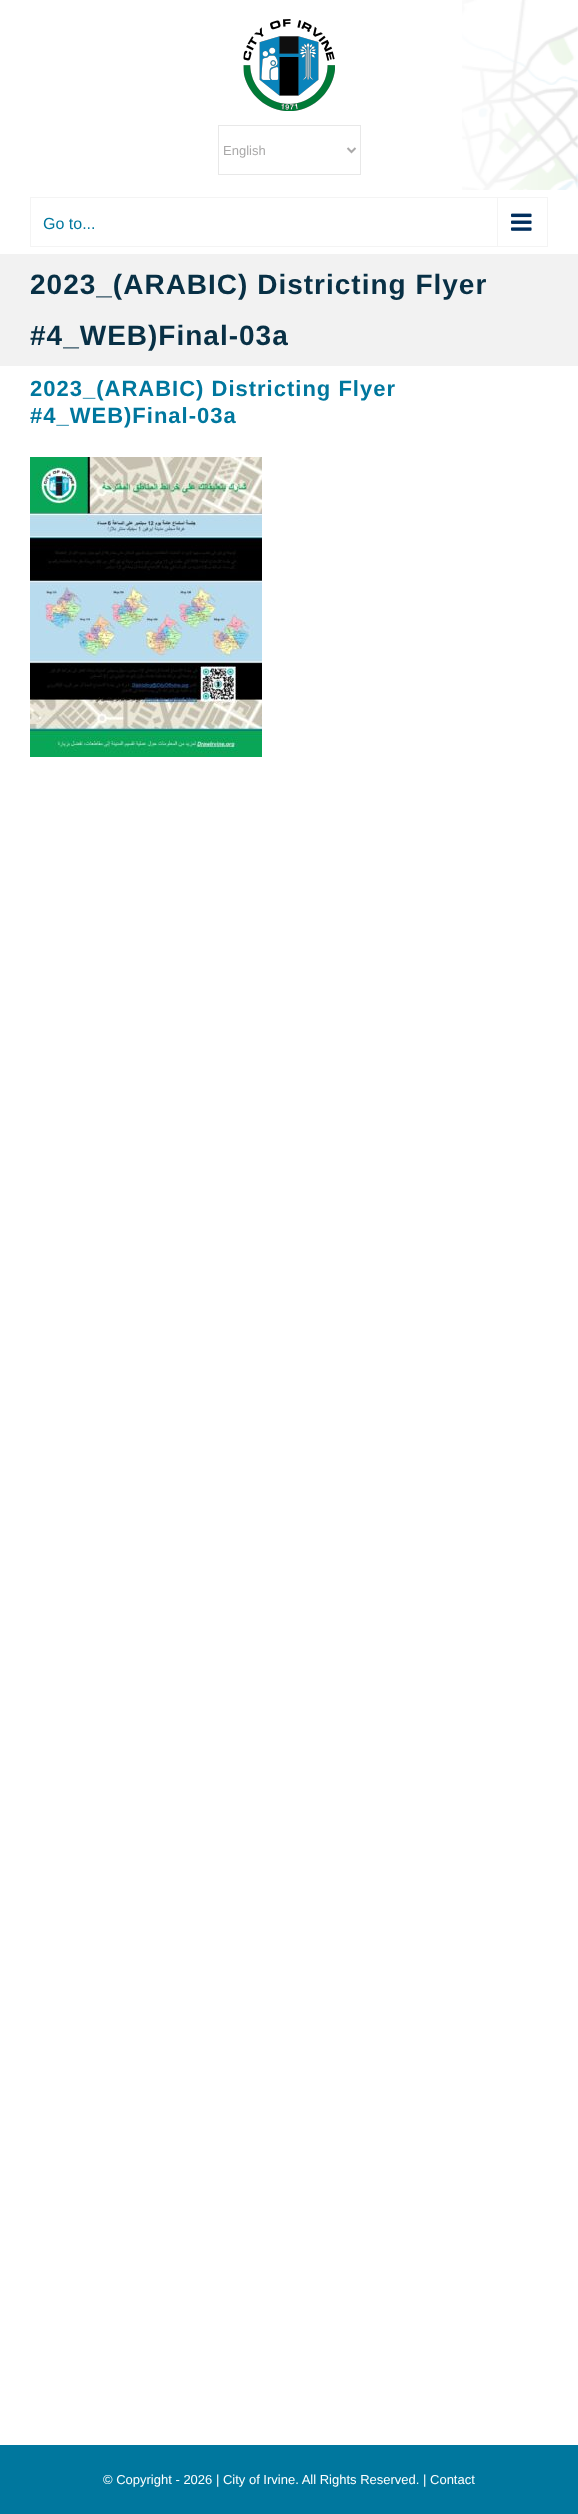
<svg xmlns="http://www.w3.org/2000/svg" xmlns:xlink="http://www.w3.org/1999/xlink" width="578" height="2514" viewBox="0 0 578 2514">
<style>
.cls-1{font:13px Liberation Sans;fill:#aaa9a9}
.cls-2{font:16px Liberation Sans;fill:#00779e}
.cls-3{font:bold 28px Liberation Sans;letter-spacing:1px;fill:#083045}
.cls-4{font:bold 22px Liberation Sans;letter-spacing:1px;fill:#00779e}
.cls-5{font:13px Liberation Sans;fill:#ffffff}
</style>
<rect width="100%" height="100%" fill="#ffffff"/>
<image xlink:href="image0.png" x="462" y="0" width="116" height="190"/>
<image xlink:href="image1.png" x="243" y="19" width="92" height="92"/>
<rect fill="none" stroke="#e8e8e8" x="218.5" y="125.5" width="142" height="49"/>
<path fill="none" stroke="#aaa9a9" stroke-width="2" d="M347.5 148L351.5 152L355.5 148"/>
<rect fill="none" stroke="#f4f4f4" x="30.5" y="197.5" width="517" height="49"/>
<rect fill="#f4f4f4" x="497" y="198" width="1" height="48"/>
<image xlink:href="image2.png" x="511" y="213" width="21" height="18"/>
<rect fill="#f2f2f2" x="0" y="254" width="578" height="112"/>
<image xlink:href="image3.png" x="30" y="457" width="232" height="300"/>
<rect fill="#00779e" x="0" y="2445" width="578" height="69"/>
<text class="cls-1" x="223" y="155">English</text>
<text class="cls-2" x="43" y="229">Go to...</text>
<text class="cls-3"><tspan x="30" y="294">2023_(ARABIC) Districting Flyer</tspan><tspan x="30" y="345">#4_WEB)Final-03a</tspan></text>
<text class="cls-4"><tspan x="30" y="396">2023_(ARABIC) Districting Flyer</tspan><tspan x="30" y="423">#4_WEB)Final-03a</tspan></text>
<text class="cls-5" x="103" y="2484">© Copyright - 2026 | City of Irvine. All Rights Reserved. | Contact</text>
</svg>
